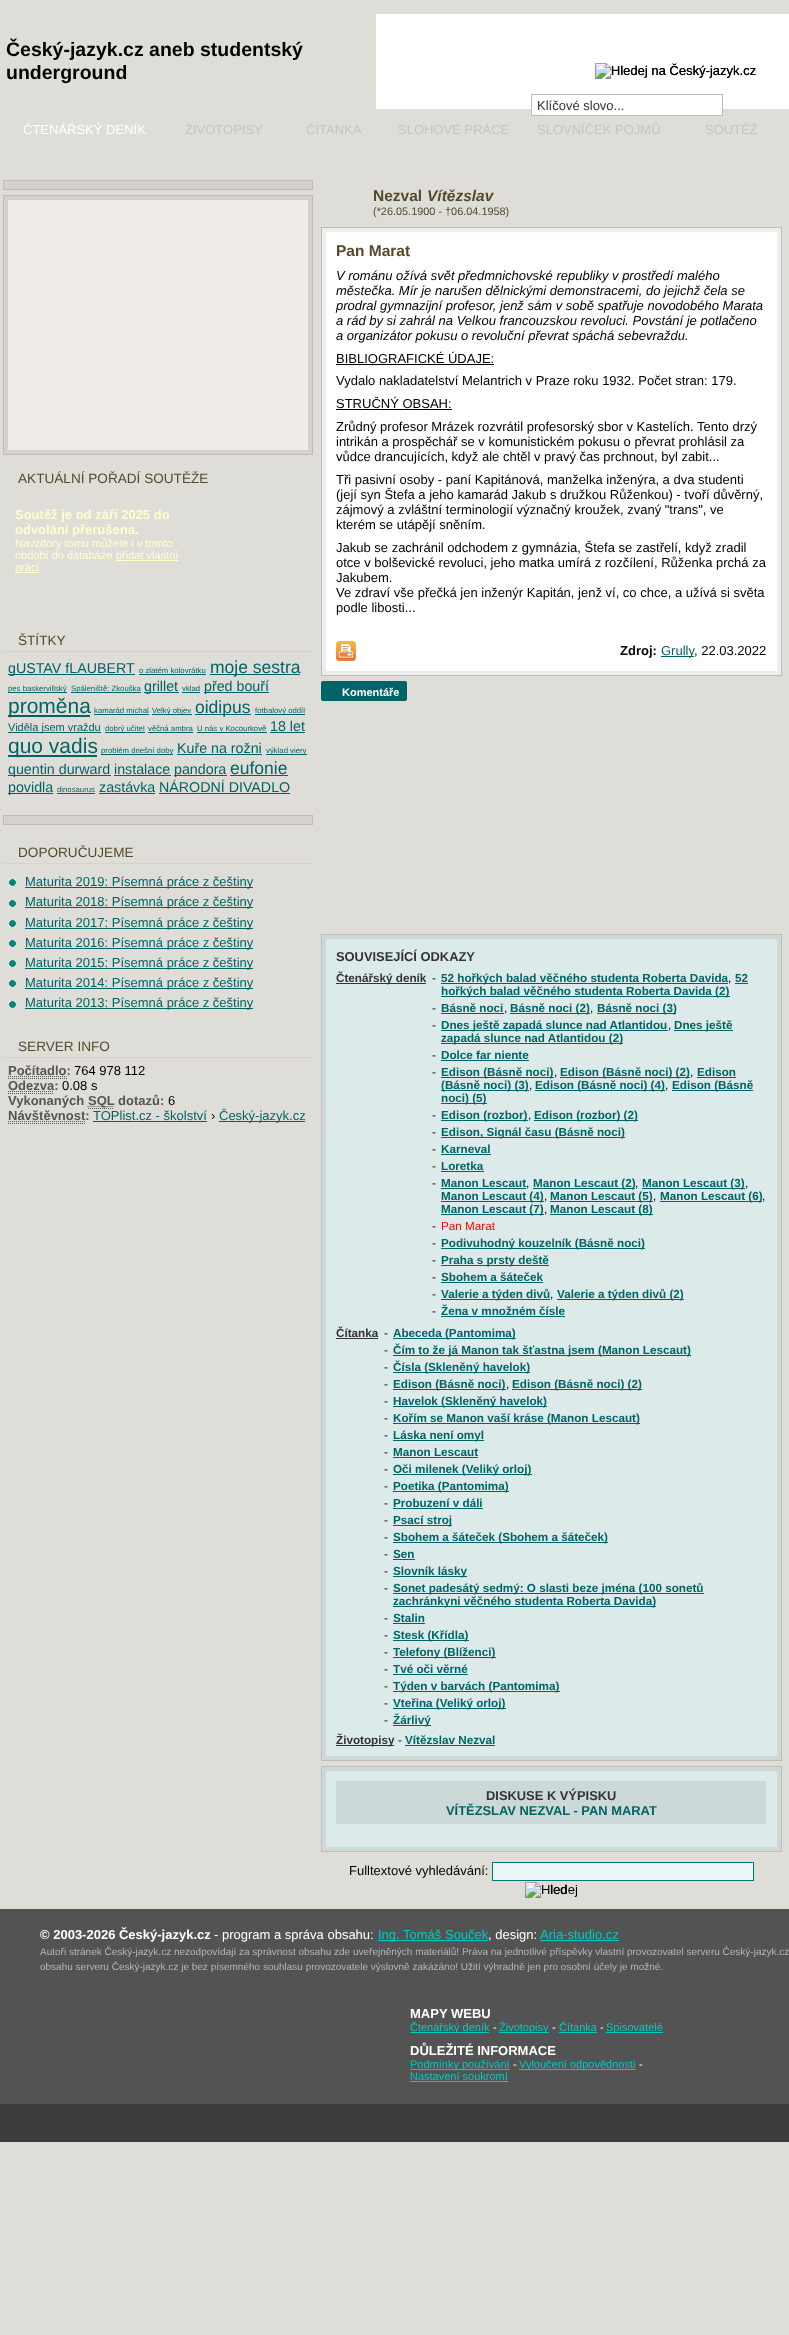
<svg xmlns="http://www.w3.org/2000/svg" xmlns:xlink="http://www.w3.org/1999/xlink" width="789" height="2335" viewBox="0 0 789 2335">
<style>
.cls-1{font:bold 19.5px Liberation Sans;fill:#000000}
.cls-2{font:13px Liberation Sans;fill:#000000}
.cls-3{font:13px Liberation Sans;fill:#333333}
.cls-4{font:13px Liberation Sans;fill:#ffffff}
.cls-5{font:13px Liberation Sans;fill:#c4c4c4}
.cls-6{font:13.6px Liberation Sans;fill:#554a2d}
.cls-7{font:bold 13px Liberation Sans;fill:#ffffcc}
.cls-8{font:11px Liberation Sans;fill:#ffffcc}
.cls-9{font:14.25px Liberation Sans;fill:#006467}
.cls-10{font:7.75px Liberation Sans;fill:#006467}
.cls-11{font:17.5px Liberation Sans;fill:#006467}
.cls-12{font:21px Liberation Sans;fill:#006467}
.cls-13{font:11px Liberation Sans;fill:#006467}
.cls-14{font:13px Liberation Sans;fill:#006467}
.cls-15{font:bold 13px Liberation Sans;fill:#555555}
.cls-16{font:bold 15.5px Liberation Sans;fill:#554a2d}
.cls-17{font:italic bold 15.5px Liberation Sans;fill:#554a2d}
.cls-18{font:10.9px Liberation Sans;fill:#554a2d}
.cls-19{font:italic 13px Liberation Sans;fill:#000000}
.cls-20{font:bold 13px Liberation Sans;fill:#000000}
.cls-21{font:bold 11px Liberation Sans;fill:#ffffff}
.cls-22{font:bold 12.9px Liberation Sans;fill:#333333}
.cls-23{font:bold 11.7px Liberation Sans;fill:#333333}
.cls-24{font:11.7px Liberation Sans;fill:#000000}
.cls-25{font:bold 11.7px Liberation Sans;fill:#006467}
.cls-26{font:11.7px Liberation Sans;fill:#ff0000}
.cls-27{font:bold 12.9px Liberation Sans;fill:#006467}
.cls-28{font:bold 13px Liberation Sans;fill:#ffffff}
.cls-29{font:13px Liberation Sans;fill:#00cbc4}
.cls-30{font:10px Liberation Sans;fill:#b6b6b6}
.cls-31{font:11px Liberation Sans;fill:#00cbc4}
.cls-32{font:11px Liberation Sans;fill:#ffffff}
</style>
<rect width="100%" height="100%" fill="#dfddd8"/>
<rect fill="#ffffff" x="376" y="14" width="413" height="95"/>
<image xlink:href="image0.png" x="595" y="63" width="161" height="16"/>
<rect fill="#ffffff" x="532" y="109" width="190" height="6"/>
<rect fill="none" stroke="#bbbbbb" x="531.5" y="94.5" width="191" height="21"/>
<rect fill="#d4d2cf" stroke="#c0bcb3" x="3.5" y="180.5" width="309" height="9"/>
<rect fill="#d4d2cf" stroke="#c0bcb3" x="3.5" y="195.5" width="309" height="259"/>
<rect fill="#efebe7" x="8" y="200" width="300" height="250"/>
<rect fill="#ffffcc" x="116" y="560" width="62" height="1"/>
<rect fill="#ffffcc" x="15" y="572" width="24" height="1"/>
<rect fill="#d6d3cd" x="3" y="651" width="310" height="1"/>
<rect fill="#006467" x="8" y="674" width="127" height="1"/>
<rect fill="#006467" x="139" y="674" width="67" height="1"/>
<rect fill="#006467" x="210" y="674" width="90" height="1"/>
<rect fill="#006467" x="8" y="692" width="59" height="1"/>
<rect fill="#006467" x="71" y="692" width="70" height="1"/>
<rect fill="#006467" x="144" y="692" width="35" height="1"/>
<rect fill="#006467" x="182" y="692" width="18" height="1"/>
<rect fill="#006467" x="204" y="692" width="65" height="1"/>
<rect fill="#006467" x="8" y="715" width="82" height="2"/>
<rect fill="#006467" x="94" y="714" width="55" height="1"/>
<rect fill="#006467" x="152" y="714" width="40" height="1"/>
<rect fill="#006467" x="195" y="714" width="56" height="1"/>
<rect fill="#006467" x="255" y="714" width="50" height="1"/>
<rect fill="#006467" x="8" y="732" width="93" height="1"/>
<rect fill="#006467" x="105" y="732" width="40" height="1"/>
<rect fill="#006467" x="148" y="732" width="45" height="1"/>
<rect fill="#006467" x="197" y="732" width="70" height="1"/>
<rect fill="#006467" x="270" y="732" width="35" height="1"/>
<rect fill="#006467" x="8" y="755" width="89" height="2"/>
<rect fill="#006467" x="101" y="754" width="72" height="1"/>
<rect fill="#006467" x="177" y="754" width="85" height="1"/>
<rect fill="#006467" x="266" y="754" width="41" height="1"/>
<rect fill="#006467" x="8" y="775" width="103" height="1"/>
<rect fill="#006467" x="114" y="775" width="57" height="1"/>
<rect fill="#006467" x="174" y="775" width="53" height="1"/>
<rect fill="#006467" x="230" y="775" width="58" height="1"/>
<rect fill="#006467" x="8" y="793" width="45" height="1"/>
<rect fill="#006467" x="57" y="793" width="38" height="1"/>
<rect fill="#006467" x="99" y="793" width="56" height="1"/>
<rect fill="#006467" x="159" y="793" width="131" height="1"/>
<rect fill="#d4d2cf" stroke="#c0bcb3" x="3.5" y="815.5" width="309" height="9"/>
<rect fill="#d6d3cd" x="3" y="863" width="310" height="1"/>
<image xlink:href="image1.png" x="9" y="879" width="7" height="7"/>
<rect fill="#006467" x="25" y="887" width="228" height="1"/>
<image xlink:href="image1.png" x="9" y="900" width="7" height="7"/>
<rect fill="#006467" x="25" y="907" width="228" height="1"/>
<image xlink:href="image1.png" x="9" y="920" width="7" height="7"/>
<rect fill="#006467" x="25" y="928" width="228" height="1"/>
<image xlink:href="image1.png" x="9" y="940" width="7" height="7"/>
<rect fill="#006467" x="25" y="948" width="228" height="1"/>
<image xlink:href="image1.png" x="9" y="960" width="7" height="7"/>
<rect fill="#006467" x="25" y="968" width="228" height="1"/>
<image xlink:href="image1.png" x="9" y="980" width="7" height="7"/>
<rect fill="#006467" x="25" y="988" width="228" height="1"/>
<image xlink:href="image1.png" x="9" y="1001" width="7" height="7"/>
<rect fill="#006467" x="25" y="1008" width="228" height="1"/>
<rect fill="#d6d3cd" x="3" y="1057" width="310" height="1"/>
<path fill="none" stroke="#555555" stroke-dasharray="1 1" d="M8 1078.5H67M8 1076.5H66.5"/>
<path fill="none" stroke="#555555" stroke-dasharray="1 1" d="M8 1093.5H54M8 1091.5H54"/>
<path fill="none" stroke="#555555" stroke-dasharray="1 1" d="M88 1108.5H114M87.5 1106.5H114"/>
<path fill="none" stroke="#555555" stroke-dasharray="1 1" d="M8 1123.5H85"/>
<path fill="none" stroke="#555555" stroke-dasharray="1 1" d="M8 1121.5H85.5"/>
<rect fill="#006467" x="93" y="1121" width="114" height="1"/>
<rect fill="#006467" x="219" y="1121" width="86" height="1"/>
<rect fill="#ededed" stroke="#c0bcb3" x="321.5" y="227.5" width="460" height="448"/>
<rect fill="#ffffff" x="326" y="232" width="451" height="439"/>
<rect fill="#000000" x="336" y="364" width="158" height="1"/>
<rect fill="#000000" x="336" y="409" width="116" height="1"/>
<image xlink:href="image2.png" x="336" y="641" width="20" height="20"/>
<rect fill="#006467" x="661" y="656" width="33" height="1"/>
<rect fill="#006467" x="321" y="681" width="86" height="20" rx="2"/>
<rect fill="#cdd9d9" stroke="#c0bcb3" x="321.5" y="934.5" width="460" height="826"/>
<rect fill="#ddeaea" x="326" y="939" width="451" height="817"/>
<rect fill="#333333" x="336" y="983" width="90" height="1"/>
<rect fill="#006467" x="441" y="983" width="287" height="1"/>
<rect fill="#006467" x="735" y="983" width="13" height="1"/>
<rect fill="#006467" x="441" y="996" width="289" height="1"/>
<rect fill="#006467" x="441" y="1013" width="63" height="1"/>
<rect fill="#006467" x="510" y="1013" width="80" height="1"/>
<rect fill="#006467" x="597" y="1013" width="79" height="1"/>
<rect fill="#006467" x="441" y="1030" width="227" height="1"/>
<rect fill="#006467" x="674" y="1030" width="59" height="1"/>
<rect fill="#006467" x="441" y="1043" width="182" height="1"/>
<rect fill="#006467" x="441" y="1060" width="88" height="1"/>
<rect fill="#006467" x="441" y="1077" width="113" height="1"/>
<rect fill="#006467" x="560" y="1077" width="130" height="1"/>
<rect fill="#006467" x="697" y="1077" width="39" height="1"/>
<rect fill="#006467" x="441" y="1090" width="88" height="1"/>
<rect fill="#006467" x="535" y="1090" width="130" height="1"/>
<rect fill="#006467" x="672" y="1090" width="81" height="1"/>
<rect fill="#006467" x="441" y="1103" width="46" height="1"/>
<rect fill="#006467" x="441" y="1120" width="87" height="1"/>
<rect fill="#006467" x="534" y="1120" width="104" height="1"/>
<rect fill="#006467" x="441" y="1137" width="184" height="1"/>
<rect fill="#006467" x="441" y="1154" width="50" height="1"/>
<rect fill="#006467" x="441" y="1171" width="43" height="1"/>
<rect fill="#006467" x="441" y="1188" width="85" height="1"/>
<rect fill="#006467" x="533" y="1188" width="102" height="1"/>
<rect fill="#006467" x="642" y="1188" width="103" height="1"/>
<rect fill="#006467" x="441" y="1201" width="103" height="1"/>
<rect fill="#006467" x="550" y="1201" width="103" height="1"/>
<rect fill="#006467" x="660" y="1201" width="102" height="1"/>
<rect fill="#006467" x="441" y="1214" width="103" height="1"/>
<rect fill="#006467" x="550" y="1214" width="103" height="1"/>
<rect fill="#006467" x="441" y="1248" width="204" height="1"/>
<rect fill="#006467" x="441" y="1265" width="108" height="1"/>
<rect fill="#006467" x="441" y="1282" width="102" height="1"/>
<rect fill="#006467" x="441" y="1299" width="109" height="1"/>
<rect fill="#006467" x="557" y="1299" width="127" height="1"/>
<rect fill="#006467" x="441" y="1316" width="124" height="1"/>
<rect fill="#333333" x="336" y="1338" width="42" height="1"/>
<rect fill="#006467" x="393" y="1338" width="123" height="1"/>
<rect fill="#006467" x="393" y="1355" width="298" height="1"/>
<rect fill="#006467" x="393" y="1372" width="137" height="1"/>
<rect fill="#006467" x="393" y="1389" width="113" height="1"/>
<rect fill="#006467" x="512" y="1389" width="130" height="1"/>
<rect fill="#006467" x="393" y="1406" width="154" height="1"/>
<rect fill="#006467" x="393" y="1423" width="247" height="1"/>
<rect fill="#006467" x="393" y="1440" width="91" height="1"/>
<rect fill="#006467" x="393" y="1457" width="85" height="1"/>
<rect fill="#006467" x="393" y="1474" width="139" height="1"/>
<rect fill="#006467" x="393" y="1491" width="116" height="1"/>
<rect fill="#006467" x="393" y="1508" width="90" height="1"/>
<rect fill="#006467" x="393" y="1525" width="59" height="1"/>
<rect fill="#006467" x="393" y="1542" width="215" height="1"/>
<rect fill="#006467" x="393" y="1559" width="22" height="1"/>
<rect fill="#006467" x="393" y="1576" width="74" height="1"/>
<rect fill="#006467" x="393" y="1593" width="311" height="1"/>
<rect fill="#006467" x="393" y="1606" width="263" height="1"/>
<rect fill="#006467" x="393" y="1623" width="32" height="1"/>
<rect fill="#006467" x="393" y="1640" width="76" height="1"/>
<rect fill="#006467" x="393" y="1657" width="103" height="1"/>
<rect fill="#006467" x="393" y="1674" width="75" height="1"/>
<rect fill="#006467" x="393" y="1691" width="167" height="1"/>
<rect fill="#006467" x="393" y="1708" width="113" height="1"/>
<rect fill="#006467" x="393" y="1725" width="38" height="1"/>
<rect fill="#333333" x="336" y="1745" width="58" height="1"/>
<rect fill="#006467" x="405" y="1745" width="90" height="1"/>
<rect fill="#cdd9d9" stroke="#c0bcb3" x="321.5" y="1766.5" width="460" height="85"/>
<rect fill="#ddeaea" x="326" y="1771" width="451" height="76"/>
<rect fill="#cdd9d9" x="336" y="1781" width="430" height="43"/>
<rect fill="#ebf6f6" stroke="#007976" x="492.5" y="1862.5" width="261" height="18"/>
<image xlink:href="image3.png" x="525" y="1882" width="52" height="16"/>
<rect fill="#3d3d3d" x="0" y="2104" width="789" height="38"/>
<rect fill="#535353" x="0" y="1909" width="789" height="195"/>
<rect fill="#00cbc4" x="378" y="1940" width="110" height="1"/>
<rect fill="#00cbc4" x="540" y="1940" width="79" height="1"/>
<rect fill="#00cbc4" x="410" y="2032" width="79" height="1"/>
<rect fill="#00cbc4" x="499" y="2032" width="50" height="1"/>
<rect fill="#00cbc4" x="559" y="2032" width="38" height="1"/>
<rect fill="#00cbc4" x="606" y="2032" width="57" height="1"/>
<rect fill="#00cbc4" x="410" y="2069" width="100" height="1"/>
<rect fill="#00cbc4" x="519" y="2069" width="117" height="1"/>
<rect fill="#00cbc4" x="410" y="2081" width="98" height="1"/>
<text class="cls-1"><tspan x="6" y="56">Český-jazyk.cz aneb studentský</tspan><tspan x="6" y="79">underground</tspan></text>
<text class="cls-2" x="611" y="75">Hledej na Český-jazyk.cz</text>
<text class="cls-3" x="537" y="110">Klíčové slovo...</text>
<text class="cls-4" x="23" y="134">ČTENÁŘSKÝ DENÍK</text>
<text class="cls-5" x="185" y="134">ŽIVOTOPISY</text>
<text class="cls-5" x="306" y="134">ČÍTANKA</text>
<text class="cls-5" x="398" y="134">SLOHOVÉ PRÁCE</text>
<text class="cls-5" x="537" y="134">SLOVNÍČEK POJMŮ</text>
<text class="cls-5" x="705" y="134">SOUTĚŽ</text>
<text class="cls-6" x="18" y="483">AKTUÁLNÍ POŘADÍ SOUTĚŽE</text>
<text class="cls-7"><tspan x="15" y="519">Soutěž je od září 2025 do</tspan><tspan x="15" y="534">odvolání přerušena.</tspan></text>
<text class="cls-8"><tspan x="15" y="547">Navzdory tomu můžete i v tomto</tspan><tspan x="15" y="559">období do databáze</tspan></text>
<text class="cls-8" x="116" y="559">přidat vlastní</text>
<text class="cls-8" x="15" y="571">práci.</text>
<text class="cls-6" x="18" y="645">ŠTÍTKY</text>
<text class="cls-9" x="8" y="673">gUSTAV fLAUBERT</text>
<text class="cls-10" x="139" y="673">o zlatém kolovrátku</text>
<text class="cls-11" x="210" y="673">moje sestra</text>
<text class="cls-10" x="8" y="691">pes baskervillský</text>
<text class="cls-10" x="71" y="691">Spáleniště: Zkouška</text>
<text class="cls-9" x="144" y="691">grillet</text>
<text class="cls-10" x="182" y="691">vklad</text>
<text class="cls-9" x="204" y="691">před bouří</text>
<text class="cls-12" x="8" y="713">proměna</text>
<text class="cls-10" x="94" y="713">kamarád michal</text>
<text class="cls-10" x="152" y="713">Velký objev</text>
<text class="cls-11" x="195" y="713">oidipus</text>
<text class="cls-10" x="255" y="713">fotbalový oddíl</text>
<text class="cls-13" x="8" y="731">Viděla jsem vraždu</text>
<text class="cls-10" x="105" y="731">dobrý učitel</text>
<text class="cls-10" x="148" y="731">věčná ambra</text>
<text class="cls-10" x="197" y="731">U nás v Kocourkově</text>
<text class="cls-9" x="270" y="731">18 let</text>
<text class="cls-12" x="8" y="753">quo vadis</text>
<text class="cls-10" x="101" y="753">problém dnešní doby</text>
<text class="cls-9" x="177" y="753">Kuře na rožni</text>
<text class="cls-10" x="266" y="753">výklad viery</text>
<text class="cls-9" x="8" y="774">quentin durward</text>
<text class="cls-9" x="114" y="774">instalace</text>
<text class="cls-9" x="174" y="774">pandora</text>
<text class="cls-11" x="230" y="774">eufonie</text>
<text class="cls-9" x="8" y="792">povidla</text>
<text class="cls-10" x="57" y="792">dinosaurus</text>
<text class="cls-9" x="99" y="792">zastávka</text>
<text class="cls-9" x="159" y="792">NÁRODNÍ DIVADLO</text>
<text class="cls-6" x="18" y="857">DOPORUČUJEME</text>
<text class="cls-14"><tspan x="25" y="886">Maturita 2019: Písemná práce z češtiny</tspan><tspan x="25" y="906">Maturita 2018: Písemná práce z češtiny</tspan><tspan x="25" y="927">Maturita 2017: Písemná práce z češtiny</tspan><tspan x="25" y="947">Maturita 2016: Písemná práce z češtiny</tspan><tspan x="25" y="967">Maturita 2015: Písemná práce z češtiny</tspan><tspan x="25" y="987">Maturita 2014: Písemná práce z češtiny</tspan><tspan x="25" y="1007">Maturita 2013: Písemná práce z češtiny</tspan></text>
<text class="cls-6" x="18" y="1051">SERVER INFO</text>
<text class="cls-15" x="8" y="1075">Počítadlo:</text>
<text class="cls-2" x="74" y="1075">764 978 112</text>
<text class="cls-15" x="8" y="1090">Odezva:</text>
<text class="cls-2" x="62" y="1090">0.08 s</text>
<text class="cls-15" x="8" y="1105">Vykonaných</text>
<text class="cls-15" x="88" y="1105">SQL dotazů:</text>
<text class="cls-2" x="168" y="1105">6</text>
<text class="cls-15" x="8" y="1120">Návštěvnost:</text>
<text class="cls-14" x="93" y="1120">TOPlist.cz - školství</text>
<text class="cls-2" x="211" y="1120">›</text>
<text class="cls-14" x="219" y="1120">Český-jazyk.cz</text>
<text class="cls-16" x="373" y="201">Nezval</text>
<text class="cls-17" x="427" y="201">Vítězslav</text>
<text class="cls-18" x="373" y="215">(*26.05.1900 - †06.04.1958)</text>
<text class="cls-16" x="336" y="256">Pan Marat</text>
<text class="cls-19"><tspan x="336" y="280">V románu ožívá svět předmnichovské republiky v prostředí malého</tspan><tspan x="336" y="295">městečka. Mír je narušen dělnickými demonstracemi, do jejichž čela se</tspan><tspan x="336" y="310">prodral gymnazijní profesor, jenž sám v sobě spatřuje novodobého Marata</tspan><tspan x="336" y="325">a rád by si zahrál na Velkou francouzskou revoluci. Povstání je potlačeno</tspan><tspan x="336" y="340">a organizátor pokusu o revoluční převrat spáchá sebevraždu.</tspan></text>
<text class="cls-2"><tspan x="336" y="363">BIBLIOGRAFICKÉ ÚDAJE:</tspan><tspan x="336" y="385">Vydalo nakladatelství Melantrich v Praze roku 1932. Počet stran: 179.</tspan><tspan x="336" y="408">STRUČNÝ OBSAH:</tspan><tspan x="336" y="431">Zrůdný profesor Mrázek rozvrátil profesorský sbor v Kastelích. Tento drzý</tspan><tspan x="336" y="446">intrikán a prospěchář se v komunistickém pokusu o převrat prohlásil za</tspan><tspan x="336" y="461">vůdce drancujících, když ale chtěl v pravý čas prchnout, byl zabit...</tspan><tspan x="336" y="484">Tři pasivní osoby - paní Kapitánová, manželka inženýra, a dva studenti</tspan><tspan x="336" y="499">(její syn Štefa a jeho kamarád Jakub s družkou Růženkou) - tvoří důvěrný,</tspan><tspan x="336" y="514">zájmový a zvláštní terminologií význačný kroužek, zvaný "trans", ve</tspan><tspan x="336" y="529">kterém se utápějí sněním.</tspan><tspan x="336" y="552">Jakub se zachránil odchodem z gymnázia, Štefa se zastřelí, když zradil</tspan><tspan x="336" y="567">otce v bolševické revoluci, jeho matka umírá z rozčílení, Růženka prchá za</tspan><tspan x="336" y="582">Jakubem.</tspan><tspan x="336" y="597">Ve zdraví vše přečká jen inženýr Kapitán, jenž ví, co chce, a užívá si světa</tspan><tspan x="336" y="612">podle libosti...</tspan></text>
<text class="cls-20" x="620" y="655">Zdroj:</text>
<text class="cls-14" x="661" y="655">Grully</text>
<text class="cls-2" x="694" y="655">, 22.03.2022</text>
<text class="cls-21" x="342" y="696">Komentáře</text>
<text class="cls-22" x="336" y="961">SOUVISEJÍCÍ ODKAZY</text>
<text class="cls-23" x="336" y="982">Čtenářský deník</text>
<text class="cls-24" x="432" y="982">-</text>
<text class="cls-25" x="441" y="982">52 hořkých balad věčného studenta Roberta Davida</text>
<text class="cls-24" x="728" y="982">,</text>
<text class="cls-25" x="735" y="982">52</text>
<text class="cls-25" x="441" y="995">hořkých balad věčného studenta Roberta Davida (2)</text>
<text class="cls-24" x="432" y="1012">-</text>
<text class="cls-25" x="441" y="1012">Básně noci</text>
<text class="cls-24" x="504" y="1012">,</text>
<text class="cls-25" x="510" y="1012">Básně noci (2)</text>
<text class="cls-24" x="590" y="1012">,</text>
<text class="cls-25" x="597" y="1012">Básně noci (3)</text>
<text class="cls-24" x="432" y="1029">-</text>
<text class="cls-25" x="441" y="1029">Dnes ještě zapadá slunce nad Atlantidou</text>
<text class="cls-24" x="668" y="1029">,</text>
<text class="cls-25" x="674" y="1029">Dnes ještě</text>
<text class="cls-25" x="441" y="1042">zapadá slunce nad Atlantidou (2)</text>
<text class="cls-24" x="432" y="1059">-</text>
<text class="cls-25" x="441" y="1059">Dolce far niente</text>
<text class="cls-24" x="432" y="1076">-</text>
<text class="cls-25" x="441" y="1076">Edison (Básně noci)</text>
<text class="cls-24" x="554" y="1076">,</text>
<text class="cls-25" x="560" y="1076">Edison (Básně noci) (2)</text>
<text class="cls-24" x="690" y="1076">,</text>
<text class="cls-25" x="697" y="1076">Edison</text>
<text class="cls-25" x="441" y="1089">(Básně noci) (3)</text>
<text class="cls-24" x="529" y="1089">,</text>
<text class="cls-25" x="535" y="1089">Edison (Básně noci) (4)</text>
<text class="cls-24" x="665" y="1089">,</text>
<text class="cls-25" x="672" y="1089">Edison (Básně</text>
<text class="cls-25" x="441" y="1102">noci) (5)</text>
<text class="cls-24" x="432" y="1119">-</text>
<text class="cls-25" x="441" y="1119">Edison (rozbor)</text>
<text class="cls-24" x="528" y="1119">,</text>
<text class="cls-25" x="534" y="1119">Edison (rozbor) (2)</text>
<text class="cls-24" x="432" y="1136">-</text>
<text class="cls-25" x="441" y="1136">Edison, Signál času (Básně noci)</text>
<text class="cls-24" x="432" y="1153">-</text>
<text class="cls-25" x="441" y="1153">Karneval</text>
<text class="cls-24" x="432" y="1170">-</text>
<text class="cls-25" x="441" y="1170">Loretka</text>
<text class="cls-24" x="432" y="1187">-</text>
<text class="cls-25" x="441" y="1187">Manon Lescaut</text>
<text class="cls-24" x="526" y="1187">,</text>
<text class="cls-25" x="533" y="1187">Manon Lescaut (2)</text>
<text class="cls-24" x="635" y="1187">,</text>
<text class="cls-25" x="642" y="1187">Manon Lescaut (3)</text>
<text class="cls-24" x="745" y="1187">,</text>
<text class="cls-25" x="441" y="1200">Manon Lescaut (4)</text>
<text class="cls-24" x="544" y="1200">,</text>
<text class="cls-25" x="550" y="1200">Manon Lescaut (5)</text>
<text class="cls-24" x="653" y="1200">,</text>
<text class="cls-25" x="660" y="1200">Manon Lescaut (6)</text>
<text class="cls-24" x="762" y="1200">,</text>
<text class="cls-25" x="441" y="1213">Manon Lescaut (7)</text>
<text class="cls-24" x="544" y="1213">,</text>
<text class="cls-25" x="550" y="1213">Manon Lescaut (8)</text>
<text class="cls-24" x="432" y="1230">-</text>
<text class="cls-26" x="441" y="1230">Pan Marat</text>
<text class="cls-24" x="432" y="1247">-</text>
<text class="cls-25" x="441" y="1247">Podivuhodný kouzelník (Básně noci)</text>
<text class="cls-24" x="432" y="1264">-</text>
<text class="cls-25" x="441" y="1264">Praha s prsty deště</text>
<text class="cls-24" x="432" y="1281">-</text>
<text class="cls-25" x="441" y="1281">Sbohem a šáteček</text>
<text class="cls-24" x="432" y="1298">-</text>
<text class="cls-25" x="441" y="1298">Valerie a týden divů</text>
<text class="cls-24" x="550" y="1298">,</text>
<text class="cls-25" x="557" y="1298">Valerie a týden divů (2)</text>
<text class="cls-24" x="432" y="1315">-</text>
<text class="cls-25" x="441" y="1315">Žena v množném čísle</text>
<text class="cls-23" x="336" y="1337">Čítanka</text>
<text class="cls-24" x="384" y="1337">-</text>
<text class="cls-25" x="393" y="1337">Abeceda (Pantomima)</text>
<text class="cls-24" x="384" y="1354">-</text>
<text class="cls-25" x="393" y="1354">Čím to že já Manon tak šťastna jsem (Manon Lescaut)</text>
<text class="cls-24" x="384" y="1371">-</text>
<text class="cls-25" x="393" y="1371">Čísla (Skleněný havelok)</text>
<text class="cls-24" x="384" y="1388">-</text>
<text class="cls-25" x="393" y="1388">Edison (Básně noci)</text>
<text class="cls-24" x="506" y="1388">,</text>
<text class="cls-25" x="512" y="1388">Edison (Básně noci) (2)</text>
<text class="cls-24" x="384" y="1405">-</text>
<text class="cls-25" x="393" y="1405">Havelok (Skleněný havelok)</text>
<text class="cls-24" x="384" y="1422">-</text>
<text class="cls-25" x="393" y="1422">Kořím se Manon vaší kráse (Manon Lescaut)</text>
<text class="cls-24" x="384" y="1439">-</text>
<text class="cls-25" x="393" y="1439">Láska není omyl</text>
<text class="cls-24" x="384" y="1456">-</text>
<text class="cls-25" x="393" y="1456">Manon Lescaut</text>
<text class="cls-24" x="384" y="1473">-</text>
<text class="cls-25" x="393" y="1473">Oči milenek (Veliký orloj)</text>
<text class="cls-24" x="384" y="1490">-</text>
<text class="cls-25" x="393" y="1490">Poetika (Pantomima)</text>
<text class="cls-24" x="384" y="1507">-</text>
<text class="cls-25" x="393" y="1507">Probuzení v dáli</text>
<text class="cls-24" x="384" y="1524">-</text>
<text class="cls-25" x="393" y="1524">Psací stroj</text>
<text class="cls-24" x="384" y="1541">-</text>
<text class="cls-25" x="393" y="1541">Sbohem a šáteček (Sbohem a šáteček)</text>
<text class="cls-24" x="384" y="1558">-</text>
<text class="cls-25" x="393" y="1558">Sen</text>
<text class="cls-24" x="384" y="1575">-</text>
<text class="cls-25" x="393" y="1575">Slovník lásky</text>
<text class="cls-24" x="384" y="1592">-</text>
<text class="cls-25"><tspan x="393" y="1592">Sonet padesátý sedmý: O slasti beze jména (100 sonetů</tspan><tspan x="393" y="1605">zachránkyni věčného studenta Roberta Davida)</tspan></text>
<text class="cls-24" x="384" y="1622">-</text>
<text class="cls-25" x="393" y="1622">Stalin</text>
<text class="cls-24" x="384" y="1639">-</text>
<text class="cls-25" x="393" y="1639">Stesk (Křídla)</text>
<text class="cls-24" x="384" y="1656">-</text>
<text class="cls-25" x="393" y="1656">Telefony (Blíženci)</text>
<text class="cls-24" x="384" y="1673">-</text>
<text class="cls-25" x="393" y="1673">Tvé oči věrné</text>
<text class="cls-24" x="384" y="1690">-</text>
<text class="cls-25" x="393" y="1690">Týden v barvách (Pantomima)</text>
<text class="cls-24" x="384" y="1707">-</text>
<text class="cls-25" x="393" y="1707">Vteřina (Veliký orloj)</text>
<text class="cls-24" x="384" y="1724">-</text>
<text class="cls-25" x="393" y="1724">Žárlivý</text>
<text class="cls-23" x="336" y="1744">Životopisy</text>
<text class="cls-24" x="398" y="1744">-</text>
<text class="cls-25" x="405" y="1744">Vítězslav Nezval</text>
<text class="cls-22" x="486" y="1800">DISKUSE K VÝPISKU</text>
<text class="cls-27" x="446" y="1815">VÍTĚZSLAV NEZVAL - PAN MARAT</text>
<text class="cls-2" x="349" y="1875">Fulltextové vyhledávání:</text>
<text class="cls-2" x="550" y="1894">led</text>
<text class="cls-28" x="40" y="1939">© 2003-2026 Český-jazyk.cz</text>
<text class="cls-4" x="214" y="1939">- program a správa obsahu:</text>
<text class="cls-29" x="378" y="1939">Ing. Tomáš Souček</text>
<text class="cls-4" x="488" y="1939">, design:</text>
<text class="cls-29" x="540" y="1939">Aria-studio.cz</text>
<text class="cls-30"><tspan x="40" y="1955">Autoři stránek Český-jazyk.cz nezodpovídají za správnost obsahu zde uveřejněných materiálů! Práva na jednotlivé příspěvky vlastní provozovatel serveru Český-jazyk.cz</tspan><tspan x="40" y="1970">obsahu serveru Český-jazyk.cz je bez písemného souhlasu provozovatele výslovně zakázáno! Užití výhradně jen pro osobní účely je možné.</tspan></text>
<text class="cls-28" x="410" y="2018">MAPY WEBU</text>
<text class="cls-31" x="410" y="2031">Čtenářský deník</text>
<text class="cls-32" x="493" y="2031">-</text>
<text class="cls-31" x="499" y="2031">Životopisy</text>
<text class="cls-32" x="552" y="2031">-</text>
<text class="cls-31" x="559" y="2031">Čítanka</text>
<text class="cls-32" x="600" y="2031">-</text>
<text class="cls-31" x="606" y="2031">Spisovatelé</text>
<text class="cls-28" x="410" y="2055">DŮLEŽITÉ INFORMACE</text>
<text class="cls-31" x="410" y="2068">Podmínky používání</text>
<text class="cls-32" x="513" y="2068">-</text>
<text class="cls-31" x="519" y="2068">Vyloučení odpovědnosti</text>
<text class="cls-32" x="639" y="2068">-</text>
<text class="cls-31" x="410" y="2080">Nastavení soukromí</text>
</svg>
